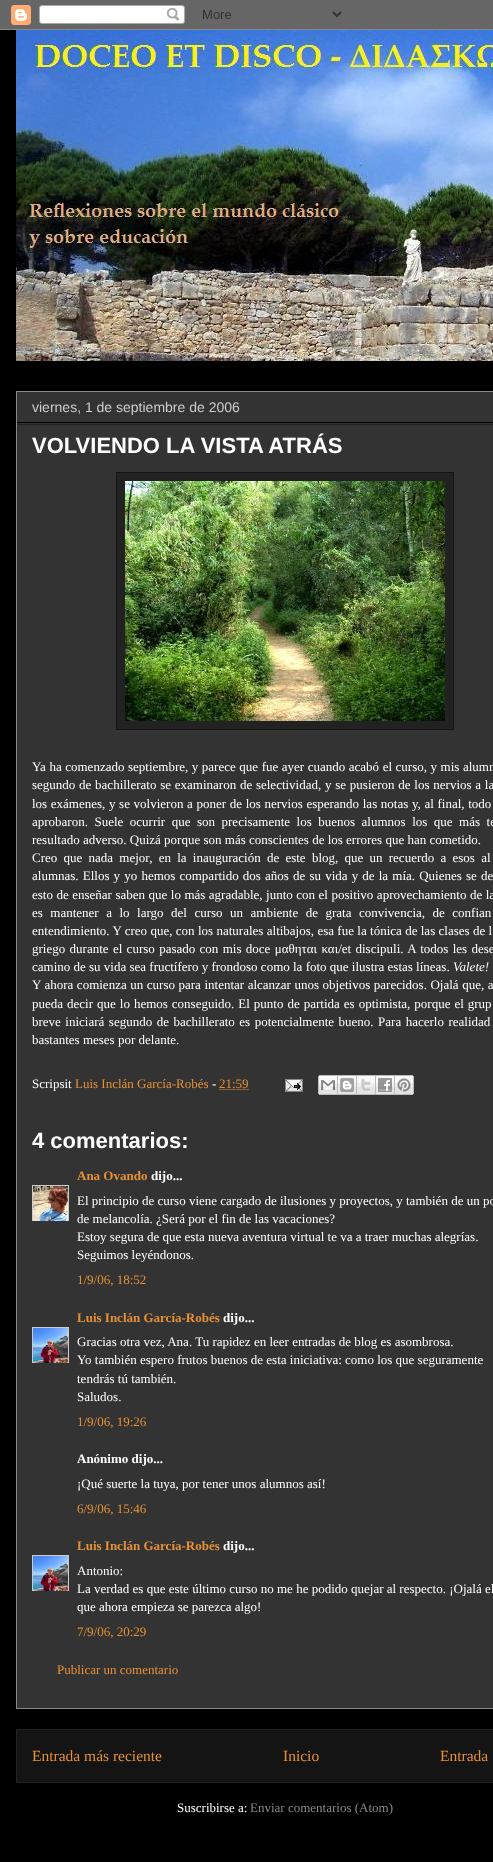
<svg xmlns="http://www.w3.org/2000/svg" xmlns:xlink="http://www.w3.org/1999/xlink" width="493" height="1862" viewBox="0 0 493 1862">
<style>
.cls-1{font:14px Liberation Sans;fill:#cccccc}
.cls-2{font:bold 22px Liberation Sans;fill:#ffffff}
.cls-3{font:13px Liberation Serif;fill:#ffffff}
.cls-4{font:italic 13px Liberation Serif;fill:#ffffff}
.cls-5{font:13px Liberation Serif;fill:#e69138}
.cls-6{font:bold 13px Liberation Serif;fill:#e69138}
.cls-7{font:bold 13px Liberation Serif;fill:#ffffff}
.cls-8{font:15.5px Liberation Serif;fill:#e69138}
.cls-9{font:13px Liberation Serif;fill:#888888}
</style>
<defs>
<clipPath id="clip1"><rect x="32" y="1185" width="37" height="36"/></clipPath>
<clipPath id="clip2"><rect x="32" y="1327" width="37" height="36"/></clipPath>
<clipPath id="clip3"><rect x="32" y="1555" width="37" height="36"/></clipPath>
</defs>
<rect width="100%" height="100%" fill="#000000"/>
<image xlink:href="image0.png" x="0" y="0" width="493" height="30"/>
<image xlink:href="image1.png" x="16" y="30" width="477" height="331"/>
<rect fill="#333333" stroke="#888888" x="16.5" y="391.5" width="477" height="1317"/>
<rect fill="#000000" x="17" y="422" width="476" height="1"/>
<rect fill="#222222" x="17" y="424" width="476" height="1"/>
<rect fill="#222222" stroke="#141414" x="116.5" y="472.5" width="337" height="257"/>
<image xlink:href="image2.png" x="125" y="481" width="320" height="240"/>
<path fill="none" stroke="#e69138" stroke-dasharray="1 1" d="M219.5 1089.5H249"/>
<image xlink:href="image3.png" x="285" y="1079" width="18" height="13"/>
<image xlink:href="image4.png" x="318" y="1075" width="20" height="20"/>
<image xlink:href="image5.png" x="338" y="1075" width="19" height="20"/>
<image xlink:href="image6.png" x="357" y="1075" width="19" height="20"/>
<image xlink:href="image7.png" x="376" y="1075" width="19" height="20"/>
<image xlink:href="image8.png" x="395" y="1075" width="19" height="20"/>
<g clip-path="url(#clip1)">
<rect fill="none" stroke="#cccccc" x="32.5" y="1185.5" width="36" height="36"/>
</g>
<image xlink:href="image9.png" x="33" y="1186" width="35" height="35"/>
<g clip-path="url(#clip2)">
<rect fill="none" stroke="#cccccc" x="32.5" y="1327.5" width="36" height="36"/>
</g>
<image xlink:href="image10.png" x="33" y="1328" width="35" height="35"/>
<g clip-path="url(#clip3)">
<rect fill="none" stroke="#cccccc" x="32.5" y="1555.5" width="36" height="36"/>
</g>
<image xlink:href="image11.png" x="33" y="1556" width="35" height="35"/>
<rect fill="#141414" stroke="#222222" x="16.5" y="1729.5" width="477" height="53"/>
<text class="cls-1" x="32" y="412">viernes, 1 de septiembre de 2006</text>
<text class="cls-2" x="32" y="453">VOLVIENDO LA VISTA ATRÁS</text>
<text class="cls-3"><tspan x="32" y="771" word-spacing="0.3">Ya ha comenzado septiembre, y parece que fue ayer cuando acabó el curso, y mis alumn</tspan><tspan x="32" y="789" word-spacing="0.5">segundo de bachillerato se examinaron de selectividad, y se pusieron de los nervios a la</tspan><tspan x="32" y="808" word-spacing="0.4">los exámenes, y se volvieron a poner de los nervios esperando las notas y, al final, todo</tspan><tspan x="32" y="826" word-spacing="3.25">aprobaron. Suele ocurrir que son precisamente los buenos alumnos los que más te</tspan><tspan x="32" y="844">resultado adverso. Quizá porque son más conscientes de los errores que han cometido.</tspan><tspan x="32" y="862" word-spacing="3">Creo que nada mejor, en la inauguración de este blog, que un recuerdo a esos al</tspan><tspan x="32" y="880" word-spacing="0.9">alumnas. Ellos y yo hemos compartido dos años de su vida y de la mía. Quienes se de</tspan><tspan x="32" y="899" word-spacing="0.25">esto de enseñar saben que lo más agradable, junto con el positivo aprovechamiento de la</tspan><tspan x="32" y="917" word-spacing="4.25">es mantener a lo largo del curso un ambiente de grata convivencia, de confian</tspan><tspan x="32" y="935" word-spacing="0.1">entendimiento. Y creo que, con los naturales altibajos, esa fue la tónica de las clases de l</tspan><tspan x="32" y="953" word-spacing="1.1">griego durante el curso pasado con mis doce μαθηται και/et discipuli. A todos les dese</tspan><tspan x="32" y="971">camino de su vida sea fructífero y frondoso como la foto que ilustra estas líneas.</tspan></text>
<text class="cls-4" x="453" y="971">Valete!</text>
<text class="cls-3"><tspan x="32" y="989" word-spacing="0.3">Y ahora comienza un curso para intentar alcanzar unos objetivos parecidos. Ojalá que, a</tspan><tspan x="32" y="1008" word-spacing="0.75">pueda decir que lo hemos conseguido. El punto de partida es optimista, porque el grup</tspan><tspan x="32" y="1026" word-spacing="1.25">breve iniciará segundo de bachillerato es potencialmente bueno. Para hacerlo realidad</tspan><tspan x="32" y="1044">bastantes meses por delante.</tspan></text>
<text class="cls-3" x="32" y="1088">Scripsit</text>
<text class="cls-5" x="75" y="1088">Luis Inclán García-Robés</text>
<text class="cls-3" x="212" y="1088">-</text>
<text class="cls-5" x="219" y="1088">21:59</text>
<text class="cls-2" x="32" y="1148">4 comentarios:</text>
<text class="cls-6" x="77" y="1180">Ana Ovando</text>
<text class="cls-7" x="151" y="1180">dijo...</text>
<text class="cls-3"><tspan x="77" y="1205">El principio de curso viene cargado de ilusiones y proyectos, y también de un po</tspan><tspan x="77" y="1223">de melancolía. ¿Será por el fin de las vacaciones?</tspan><tspan x="77" y="1241">Estoy segura de que esta nueva aventura virtual te va a traer muchas alegrías.</tspan><tspan x="77" y="1259">Seguimos leyéndonos.</tspan></text>
<text class="cls-5" x="77" y="1284">1/9/06, 18:52</text>
<text class="cls-6" x="77" y="1322">Luis Inclán García-Robés</text>
<text class="cls-7" x="223" y="1322">dijo...</text>
<text class="cls-3"><tspan x="77" y="1346">Gracias otra vez, Ana. Tu rapidez en leer entradas de blog es asombrosa.</tspan><tspan x="77" y="1364">Yo también espero frutos buenos de esta iniciativa: como los que seguramente</tspan><tspan x="77" y="1383">tendrás tú también.</tspan><tspan x="77" y="1401">Saludos.</tspan></text>
<text class="cls-5" x="77" y="1426">1/9/06, 19:26</text>
<text class="cls-7" x="77" y="1463">Anónimo dijo...</text>
<text class="cls-3" x="77" y="1488">¡Qué suerte la tuya, por tener unos alumnos así!</text>
<text class="cls-5" x="77" y="1513">6/9/06, 15:46</text>
<text class="cls-6" x="77" y="1550">Luis Inclán García-Robés</text>
<text class="cls-7" x="223" y="1550">dijo...</text>
<text class="cls-3"><tspan x="77" y="1575">Antonio:</tspan><tspan x="77" y="1593">La verdad es que este último curso no me he podido quejar al respecto. ¡Ojalá el</tspan><tspan x="77" y="1611">que ahora empieza se parezca algo!</tspan></text>
<text class="cls-5" x="77" y="1636">7/9/06, 20:29</text>
<text class="cls-5" x="57" y="1674">Publicar un comentario</text>
<text class="cls-8" x="32" y="1761">Entrada más reciente</text>
<text class="cls-8" x="283" y="1761">Inicio</text>
<text class="cls-8" x="440" y="1761">Entrada</text>
<text class="cls-3" x="177" y="1812">Suscribirse a:</text>
<text class="cls-9" x="250" y="1812">Enviar comentarios (Atom)</text>
</svg>
